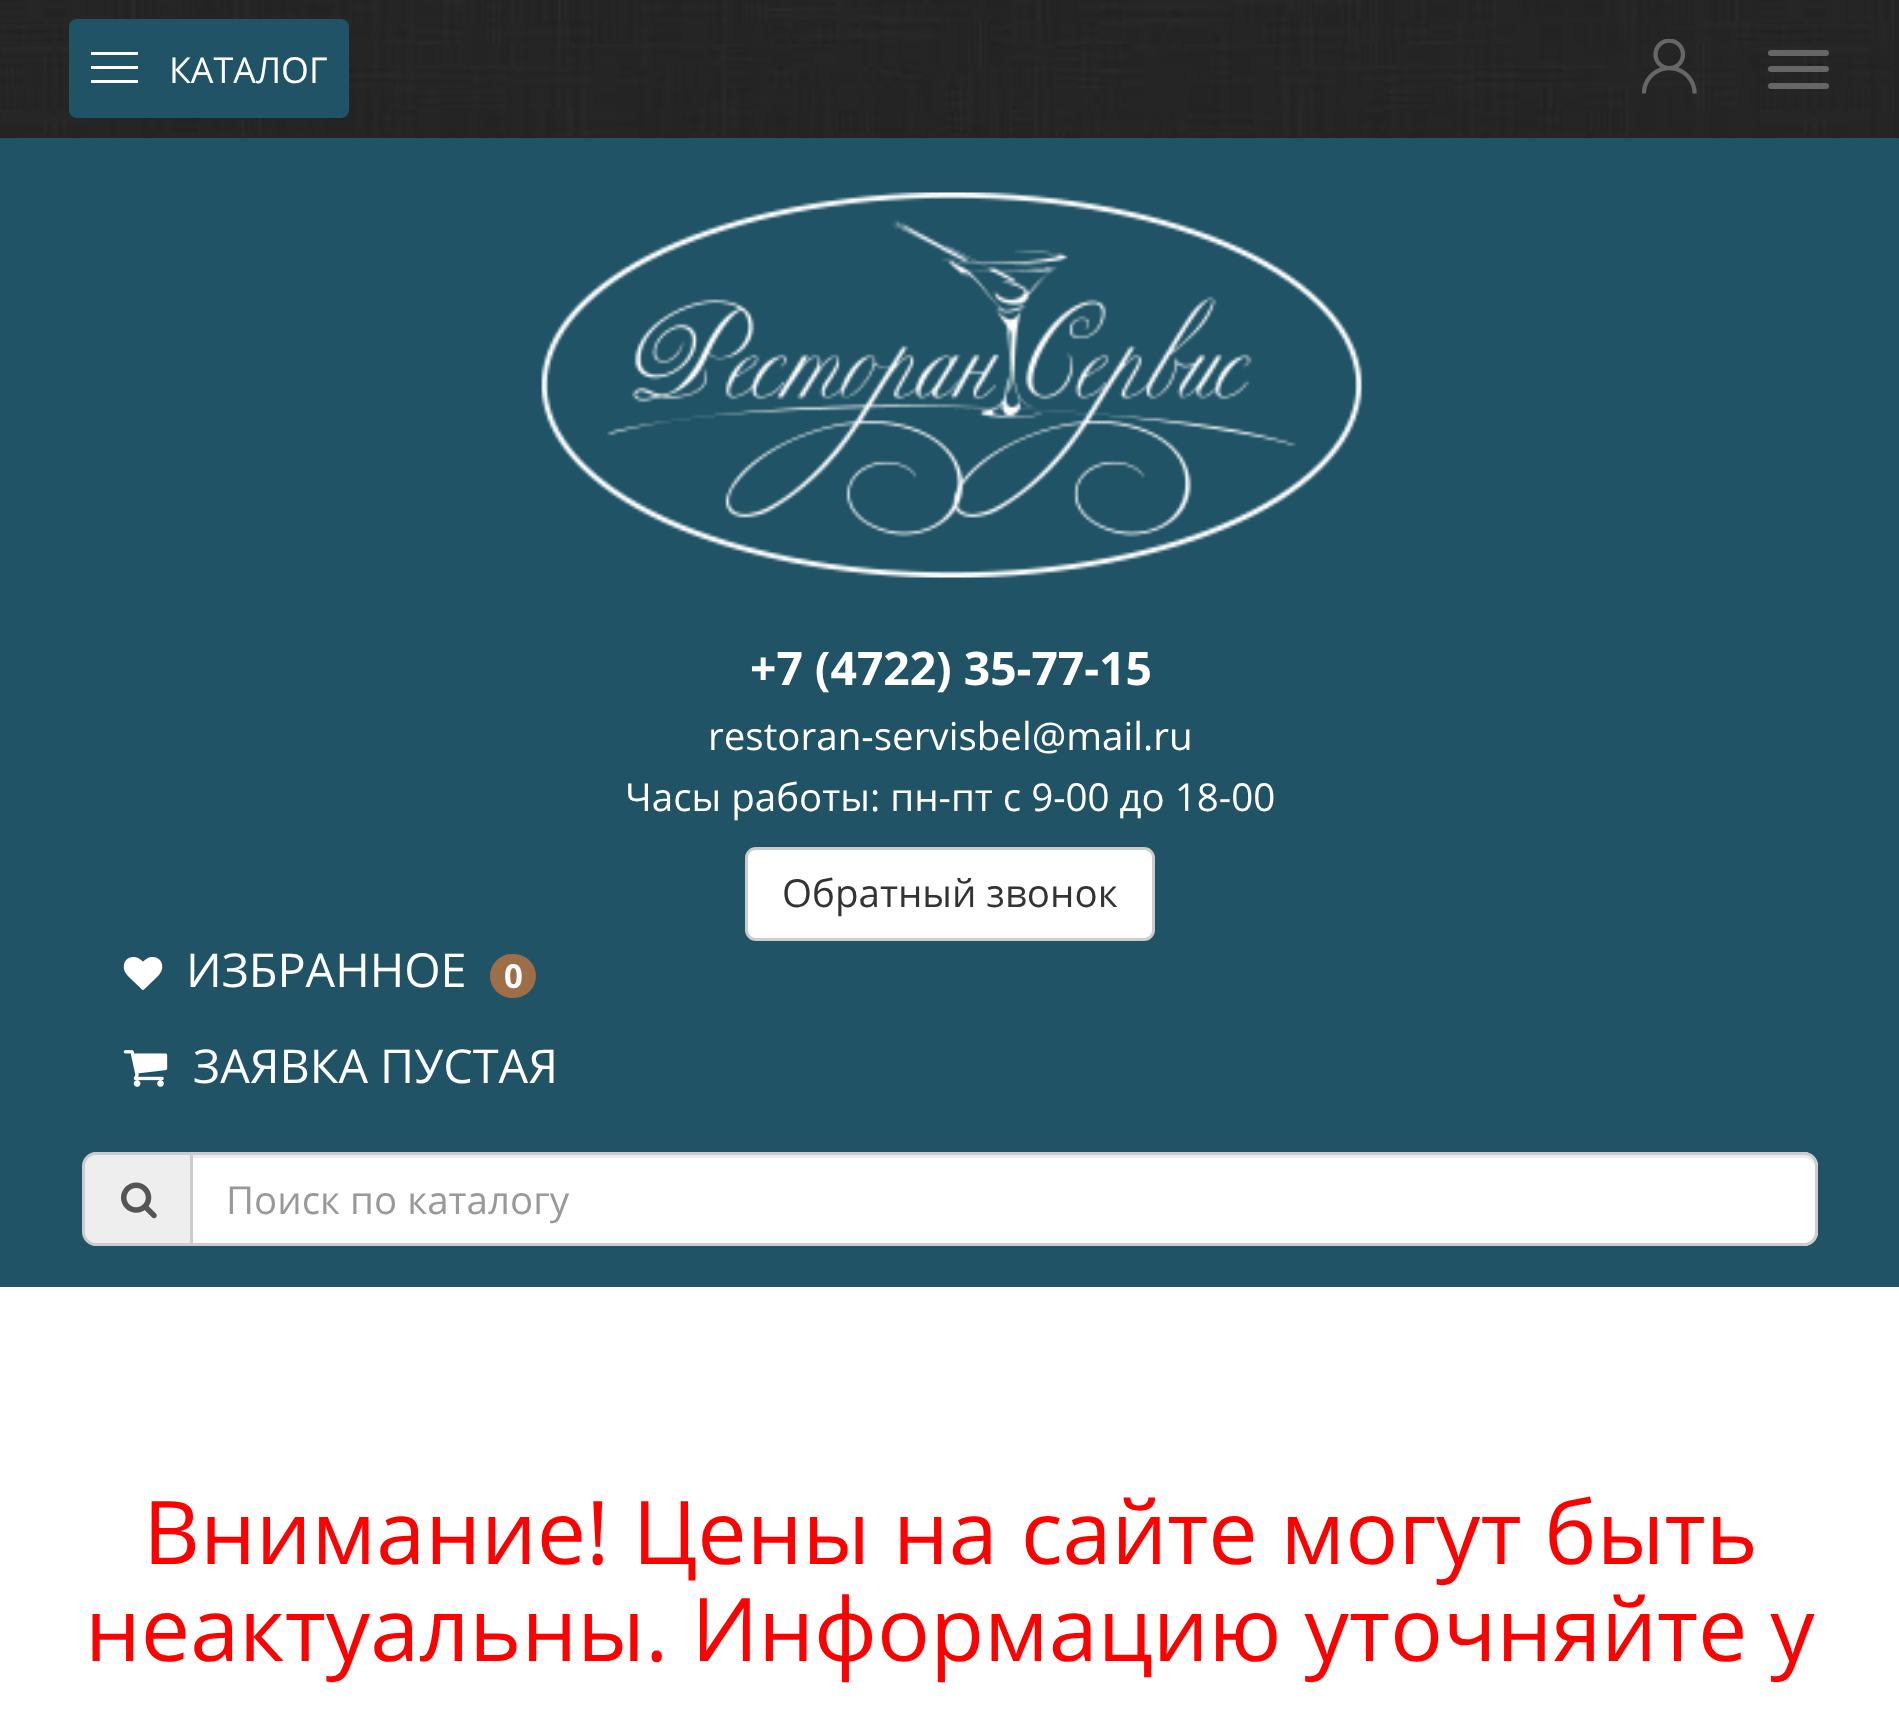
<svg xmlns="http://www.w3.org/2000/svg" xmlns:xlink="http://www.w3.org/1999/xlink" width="1899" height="1716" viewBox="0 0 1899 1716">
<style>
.cls-1{font:35.75px Open Sans;fill:#ffffff}
.cls-2{font:bold 46.25px Open Sans;fill:#ffffff}
.cls-3{font:38.5px Open Sans;fill:#ffffff}
.cls-4{font:38.5px Open Sans;fill:#333333}
.cls-5{font:46.75px Open Sans;fill:#ffffff}
.cls-6{font:bold 33px Open Sans;fill:#ffffff}
.cls-7{font:38.5px Open Sans;fill:#999999}
.cls-8{font:88px Open Sans;fill:#ff0000}
</style>
<rect width="100%" height="100%" fill="#ffffff"/>
<rect fill="#252424" x="0" y="0" width="1899" height="138"/>
<image xlink:href="image0.png" x="1" y="0" width="1893" height="137"/>
<rect fill="#205366" x="69" y="19" width="280" height="99" rx="8"/>
<rect fill="#ffffff" x="91" y="52" width="47" height="3"/>
<rect fill="#ffffff" x="91" y="66" width="47" height="3"/>
<rect fill="#ffffff" x="91" y="80" width="47" height="3"/>
<image xlink:href="image1.png" x="1642" y="39" width="55" height="55"/>
<rect fill="#666666" x="1768" y="50" width="61" height="6" rx="3"/>
<rect fill="#666666" x="1768" y="66" width="61" height="6" rx="3"/>
<rect fill="#666666" x="1768" y="83" width="61" height="6" rx="3"/>
<rect fill="#205366" x="0" y="138" width="1899" height="1149"/>
<image xlink:href="image2.png" x="541" y="192" width="822" height="386"/>
<rect fill="#ffffff" stroke="#cccccc" stroke-width="3" x="746.5" y="848.5" width="407" height="91" rx="9.5"/>
<image xlink:href="image3.png" x="123" y="957" width="40" height="33"/>
<rect fill="#9d6e47" x="490" y="954" width="46" height="44" rx="22"/>
<image xlink:href="image4.png" x="123" y="1050" width="45" height="37"/>
<path fill="#eeeeee" d="M97 1152H190V1246H97C89.5 1246 83 1239.5 83 1232V1166C83 1158.5 89.5 1152 97 1152Z"/>
<path fill="#cccccc" fill-rule="evenodd" d="M96 1152H190V1246H96C89 1246 82 1240 82 1232V1166C82 1158 89 1152 96 1152ZM96 1155H190V1243H96C90 1243 85 1238 85 1232V1166C85 1160 90 1155 96 1155Z"/>
<image xlink:href="image5.png" x="121" y="1182" width="36" height="37"/>
<path fill="#ffffff" d="M190 1152H1804C1811.5 1152 1818 1158.5 1818 1166V1232C1818 1239.5 1811.5 1246 1804 1246H190Z"/>
<path fill="#ececec" d="M193 1155V1158H1804C1810 1158 1815 1163 1815 1169C1815 1162 1812 1155 1804 1155Z"/>
<path fill="none" stroke="#cccccc" stroke-width="3" d="M191.5 1153.5H1804C1811 1153.5 1816.5 1159 1816.5 1166V1232C1816.5 1239 1811 1244.5 1804 1244.5H191.5Z"/>
<text class="cls-1" x="169" y="83">КАТАЛОГ</text>
<text class="cls-2" x="750" y="685">+7 (4722) 35-77-15</text>
<text class="cls-3" x="708" y="750">restoran-servisbel@mail.ru</text>
<text class="cls-3" x="625" y="811">Часы работы: пн-пт с 9-00 до 18-00</text>
<text class="cls-4" x="782" y="907">Обратный звонок</text>
<text class="cls-5" x="186" y="987">ИЗБРАННОЕ</text>
<text class="cls-6" x="504" y="988">0</text>
<text class="cls-5" x="193" y="1083">ЗАЯВКА ПУСТАЯ</text>
<text class="cls-7" x="226" y="1214">Поиск по каталогу</text>
<text class="cls-8" x="143" y="1564">Внимание! Цены на сайте могут быть</text>
<text class="cls-8" x="85" y="1661">неактуальны. Информацию уточняйте у</text>
</svg>
